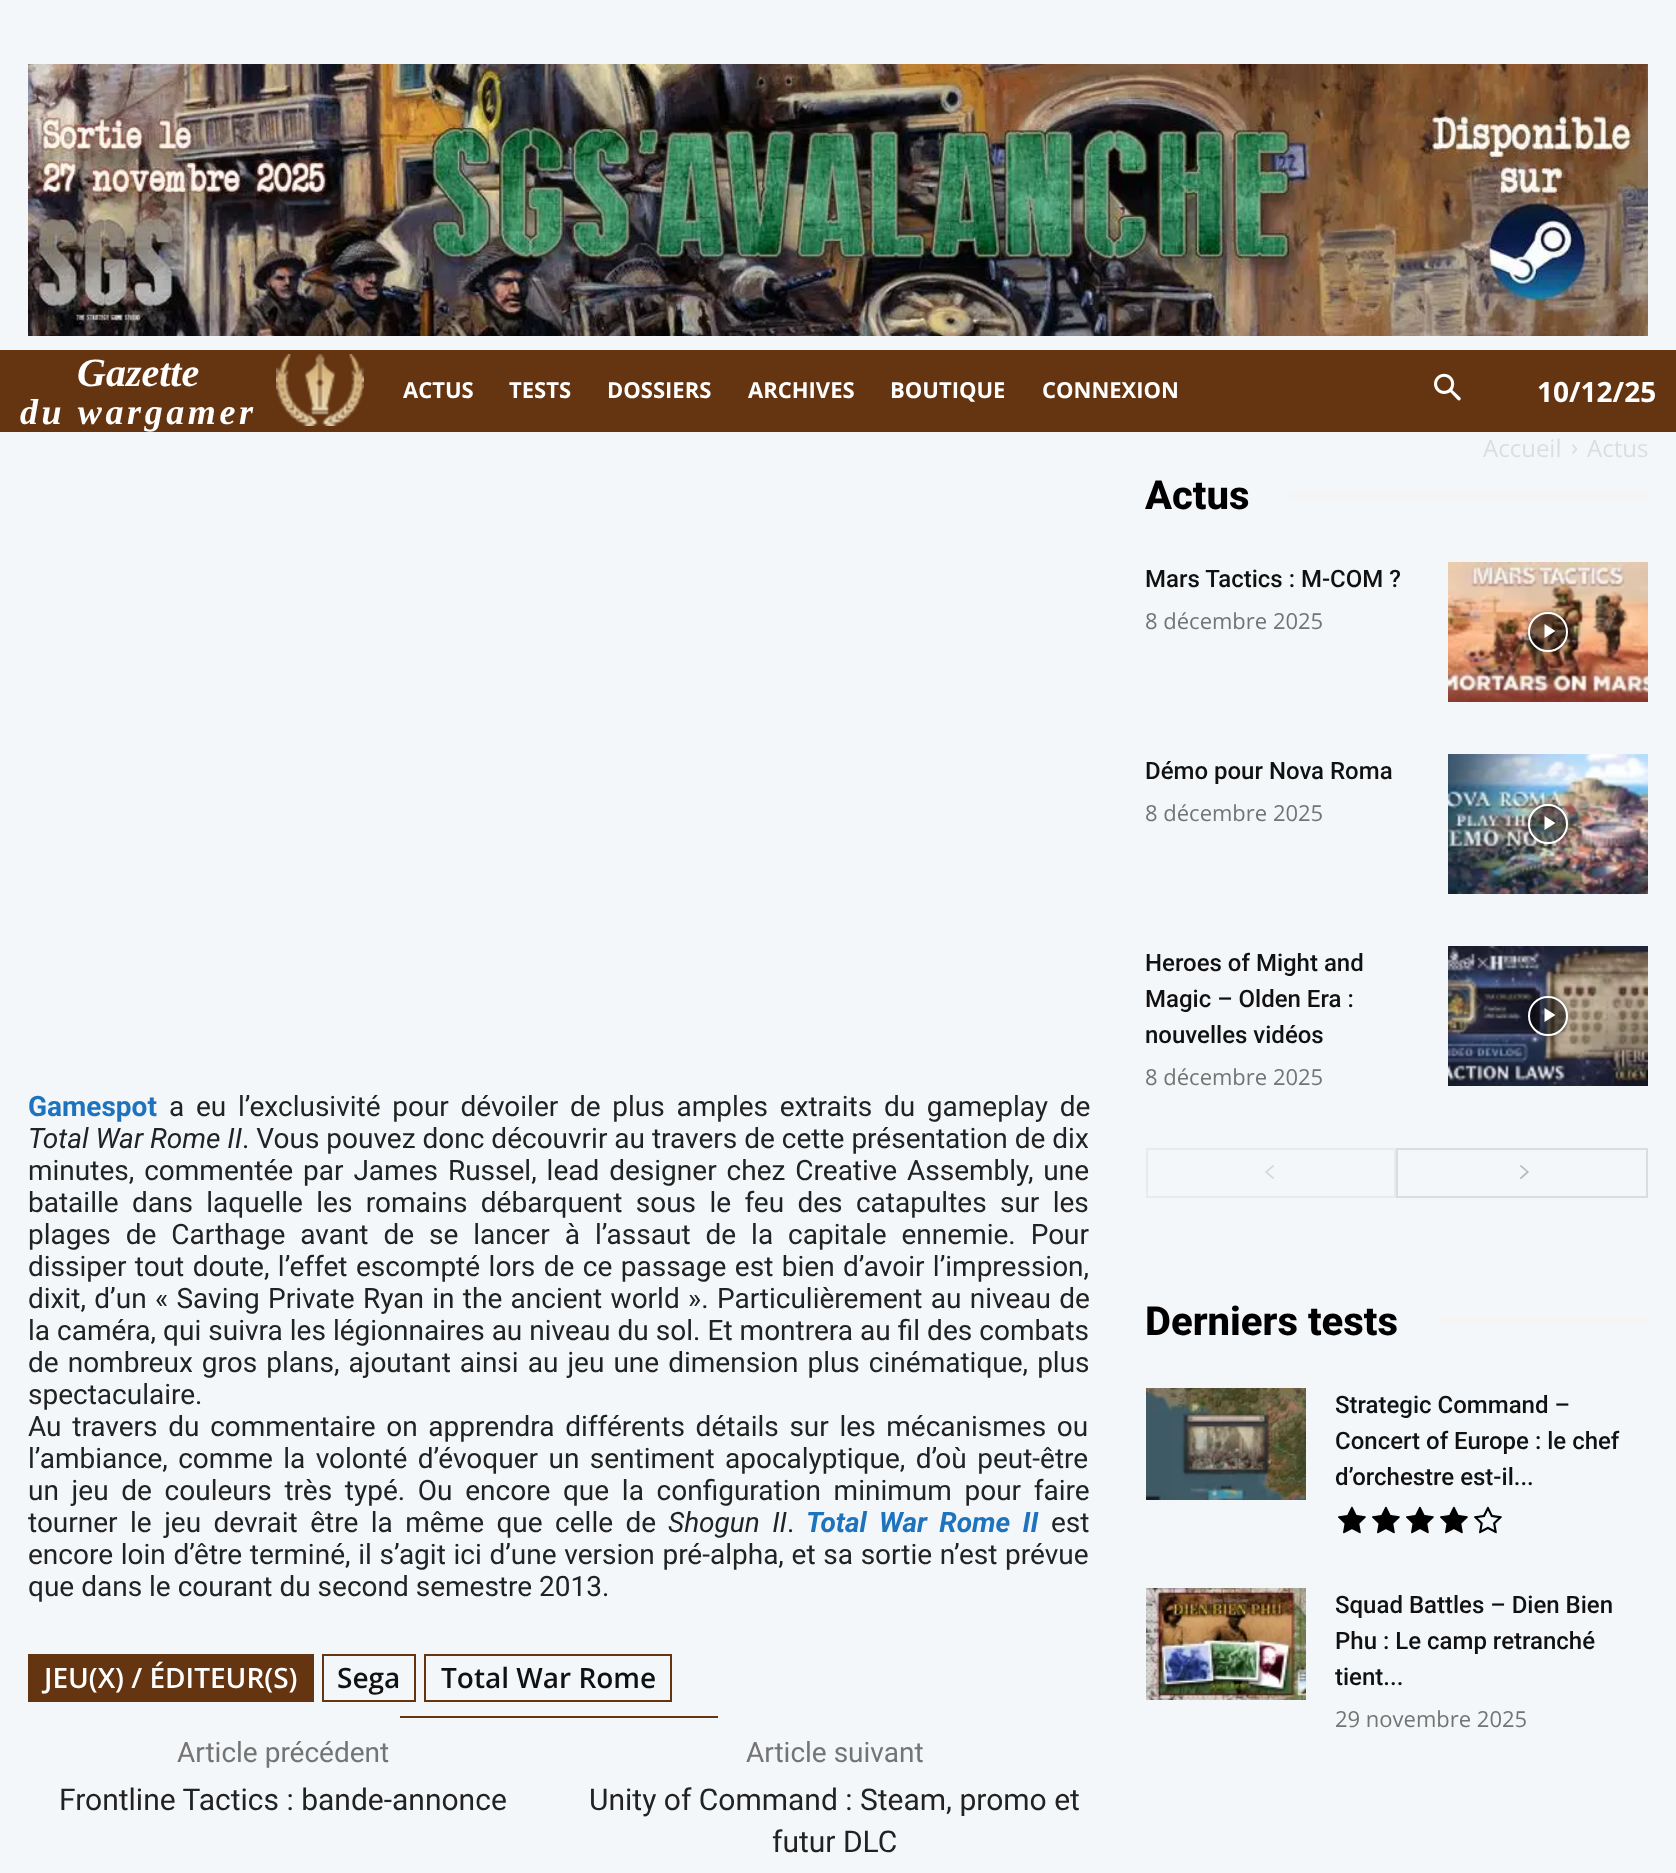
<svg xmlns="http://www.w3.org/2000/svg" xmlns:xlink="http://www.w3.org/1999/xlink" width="1676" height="1873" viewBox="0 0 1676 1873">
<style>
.cls-1{font:italic bold 40px Liberation Serif;fill:#ffffff}
.cls-2{font:italic bold 36px Liberation Serif;letter-spacing:3.6px;fill:#ffffff}
.cls-3{font:bold 22px Open Sans;fill:#ffffff}
.cls-4{font:bold 28px Open Sans;fill:#ffffff}
.cls-5{font:24px Open Sans;fill:#dddddd}
.cls-6{font:bold 28px Roboto;fill:#1e73be}
.cls-7{font:28px Roboto;fill:#222222}
.cls-8{font:italic 28px Roboto;fill:#222222}
.cls-9{font:italic bold 28px Roboto;fill:#1e73be}
.cls-10{font:600 28px Open Sans;fill:#ffffff}
.cls-11{font:600 28px Open Sans;fill:#111111}
.cls-12{font:28px Roboto;fill:#747474}
.cls-13{font:30px Roboto;fill:#222222}
.cls-14{font:800 40px Roboto;fill:#000000}
.cls-15{font:500 24px Roboto;fill:#111111}
.cls-16{font:22px Open Sans;fill:#747474}
</style>
<defs>
<clipPath id="clip1"><path d="M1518 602H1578V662H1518ZM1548 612C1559 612 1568 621 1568 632C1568 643 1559 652 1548 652C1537 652 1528 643 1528 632C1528 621 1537 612 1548 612Z" clip-rule="evenodd"/></clipPath>
<clipPath id="clip2"><path d="M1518 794H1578V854H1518ZM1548 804C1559 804 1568 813 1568 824C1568 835 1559 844 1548 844C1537 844 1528 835 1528 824C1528 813 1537 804 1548 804Z" clip-rule="evenodd"/></clipPath>
<clipPath id="clip3"><path d="M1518 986H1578V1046H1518ZM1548 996C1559 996 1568 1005 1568 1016C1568 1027 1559 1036 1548 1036C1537 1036 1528 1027 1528 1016C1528 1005 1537 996 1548 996Z" clip-rule="evenodd"/></clipPath>
</defs>
<rect width="100%" height="100%" fill="#f4f7f9"/>
<image xlink:href="image0.png" x="28" y="64" width="1620" height="272"/>
<rect fill="#653410" x="0" y="350" width="1676" height="82"/>
<image xlink:href="image1.png" x="276" y="354" width="88" height="72"/>
<image xlink:href="image2.png" x="1434" y="373" width="27" height="28"/>
<image xlink:href="image3.png" x="1572" y="444" width="6" height="10"/>
<rect fill="#653410" x="28" y="1654" width="286" height="48"/>
<rect fill="none" stroke="#653410" stroke-width="2" x="323" y="1655" width="92" height="46"/>
<rect fill="none" stroke="#653410" stroke-width="2" x="425" y="1655" width="246" height="46"/>
<rect fill="#653410" x="400" y="1716" width="318" height="2"/>
<rect fill="#f5f5f5" x="1290" y="492" width="358" height="8"/>
<image xlink:href="image4.png" x="1448" y="562" width="200" height="140"/>
<g clip-path="url(#clip1)">
<rect fill="#000000" fill-opacity="0.4" filter="blur(3px)" x="1528" y="612" width="40" height="40" rx="20"/>
</g>
<circle fill="#000000" fill-opacity="0.48" stroke="#ffffff" stroke-width="2" cx="1548" cy="632" r="19"/>
<path fill="#ffffff" d="M1544.5 624V638L1555.5 631Z"/>
<image xlink:href="image5.png" x="1448" y="754" width="200" height="140"/>
<g clip-path="url(#clip2)">
<rect fill="#000000" fill-opacity="0.4" filter="blur(3px)" x="1528" y="804" width="40" height="40" rx="20"/>
</g>
<circle fill="#000000" fill-opacity="0.48" stroke="#ffffff" stroke-width="2" cx="1548" cy="824" r="19"/>
<path fill="#ffffff" d="M1544.5 816V830L1555.5 823Z"/>
<image xlink:href="image6.png" x="1448" y="946" width="200" height="140"/>
<g clip-path="url(#clip3)">
<rect fill="#000000" fill-opacity="0.4" filter="blur(3px)" x="1528" y="996" width="40" height="40" rx="20"/>
</g>
<circle fill="#000000" fill-opacity="0.48" stroke="#ffffff" stroke-width="2" cx="1548" cy="1016" r="19"/>
<path fill="#ffffff" d="M1544.5 1008V1022L1555.5 1015Z"/>
<rect fill="none" stroke="#e8eaeb" stroke-width="2" x="1147" y="1149" width="248" height="48"/>
<image xlink:href="image7.png" x="1265" y="1165" width="9" height="14"/>
<rect fill="none" stroke="#dcdcdc" stroke-width="2" x="1397" y="1149" width="250" height="48"/>
<image xlink:href="image8.png" x="1520" y="1165" width="9" height="14"/>
<rect fill="#f5f5f5" x="1438" y="1318" width="210" height="8"/>
<image xlink:href="image9.png" x="1146" y="1388" width="160" height="112"/>
<image xlink:href="image10.png" x="1338" y="1506" width="28" height="28"/>
<image xlink:href="image10.png" x="1372" y="1506" width="28" height="28"/>
<image xlink:href="image10.png" x="1406" y="1506" width="28" height="28"/>
<image xlink:href="image10.png" x="1440" y="1506" width="28" height="28"/>
<image xlink:href="image11.png" x="1474" y="1506" width="28" height="28"/>
<image xlink:href="image12.png" x="1146" y="1588" width="160" height="112"/>
<text class="cls-1" x="77" y="386">Gazette</text>
<text class="cls-2" x="20" y="424">du wargamer</text>
<text class="cls-3" x="403" y="398">ACTUS</text>
<text class="cls-3" x="509" y="398">TESTS</text>
<text class="cls-3" x="607" y="398">DOSSIERS</text>
<text class="cls-3" x="748" y="398">ARCHIVES</text>
<text class="cls-3" x="890" y="398">BOUTIQUE</text>
<text class="cls-3" x="1042" y="398">CONNEXION</text>
<text class="cls-4" x="1537" y="402">10/12/25</text>
<text class="cls-5" x="1483" y="457">Accueil</text>
<text class="cls-5" x="1587" y="457">Actus</text>
<text class="cls-6" x="28" y="1116">Gamespot</text>
<text class="cls-7" x="169" y="1116" word-spacing="4.75">a eu l’exclusivité pour dévoiler de plus amples extraits du gameplay de</text>
<text class="cls-8" x="28" y="1148">Total War Rome II</text>
<text class="cls-7" x="242" y="1148">. Vous pouvez donc découvrir au travers de cette présentation de dix</text>
<text class="cls-7"><tspan x="28" y="1180" word-spacing="3">minutes, commentée par James Russel, lead designer chez Creative Assembly, une</tspan><tspan x="28" y="1212" word-spacing="6.4">bataille dans laquelle les romains débarquent sous le feu des catapultes sur les</tspan><tspan x="28" y="1244" word-spacing="8">plages de Carthage avant de se lancer à l’assaut de la capitale ennemie. Pour</tspan><tspan x="28" y="1276" word-spacing="1.5">dissiper tout doute, l’effet escompté lors de ce passage est bien d’avoir l’impression,</tspan><tspan x="28" y="1308" word-spacing="1.4">dixit, d’un « Saving Private Ryan in the ancient world ». Particulièrement au niveau de</tspan><tspan x="28" y="1340" word-spacing="0.1">la caméra, qui suivra les légionnaires au niveau du sol. Et montrera au fil des combats</tspan><tspan x="28" y="1372" word-spacing="2.1">de nombreux gros plans, ajoutant ainsi au jeu une dimension plus cinématique, plus</tspan><tspan x="28" y="1404">spectaculaire.</tspan><tspan x="28" y="1436" word-spacing="3.75">Au travers du commentaire on apprendra différents détails sur les mécanismes ou</tspan><tspan x="28" y="1468" word-spacing="3.5">l’ambiance, comme la volonté d’évoquer un sentiment apocalyptique, d’où peut-être</tspan><tspan x="28" y="1500" word-spacing="5.75">un jeu de couleurs très typé. Ou encore que la configuration minimum pour faire</tspan><tspan x="28" y="1532" word-spacing="5.5">tourner le jeu devrait être la même que celle de</tspan></text>
<text class="cls-8" x="668" y="1532" word-spacing="5.5">Shogun II</text>
<text class="cls-7" x="787" y="1532">.</text>
<text class="cls-9" x="806" y="1532" word-spacing="5.5">Total War Rome II</text>
<text class="cls-7" x="1051" y="1532">est</text>
<text class="cls-7"><tspan x="28" y="1564" word-spacing="0.75">encore loin d’être terminé, il s’agit ici d’une version pré-alpha, et sa sortie n’est prévue</tspan><tspan x="28" y="1596">que dans le courant du second semestre 2013.</tspan></text>
<text class="cls-10" x="44" y="1688">JEU(X) / ÉDITEUR(S)</text>
<text class="cls-11" x="337" y="1688">Sega</text>
<text class="cls-11" x="441" y="1688">Total War Rome</text>
<text class="cls-12" x="177" y="1762">Article précédent</text>
<text class="cls-13" x="59" y="1810">Frontline Tactics : bande-annonce</text>
<text class="cls-12" x="746" y="1762">Article suivant</text>
<text class="cls-13" x="589" y="1810">Unity of Command : Steam, promo et</text>
<text class="cls-13" x="772" y="1852">futur DLC</text>
<text class="cls-14" x="1145" y="509">Actus</text>
<text class="cls-15" x="1145" y="587">Mars Tactics : M-COM ?</text>
<text class="cls-16" x="1145" y="629">8 décembre 2025</text>
<text class="cls-15" x="1145" y="779">Démo pour Nova Roma</text>
<text class="cls-16" x="1145" y="821">8 décembre 2025</text>
<text class="cls-15"><tspan x="1145" y="971">Heroes of Might and</tspan><tspan x="1145" y="1007">Magic – Olden Era :</tspan><tspan x="1145" y="1043">nouvelles vidéos</tspan></text>
<text class="cls-16" x="1145" y="1085">8 décembre 2025</text>
<text class="cls-14" x="1145" y="1335">Derniers tests</text>
<text class="cls-15"><tspan x="1335" y="1413">Strategic Command –</tspan><tspan x="1335" y="1449">Concert of Europe : le chef</tspan><tspan x="1335" y="1485">d’orchestre est-il...</tspan></text>
<text class="cls-15"><tspan x="1335" y="1613">Squad Battles – Dien Bien</tspan><tspan x="1335" y="1649">Phu : Le camp retranché</tspan><tspan x="1335" y="1685">tient...</tspan></text>
<text class="cls-16" x="1335" y="1727">29 novembre 2025</text>
</svg>
